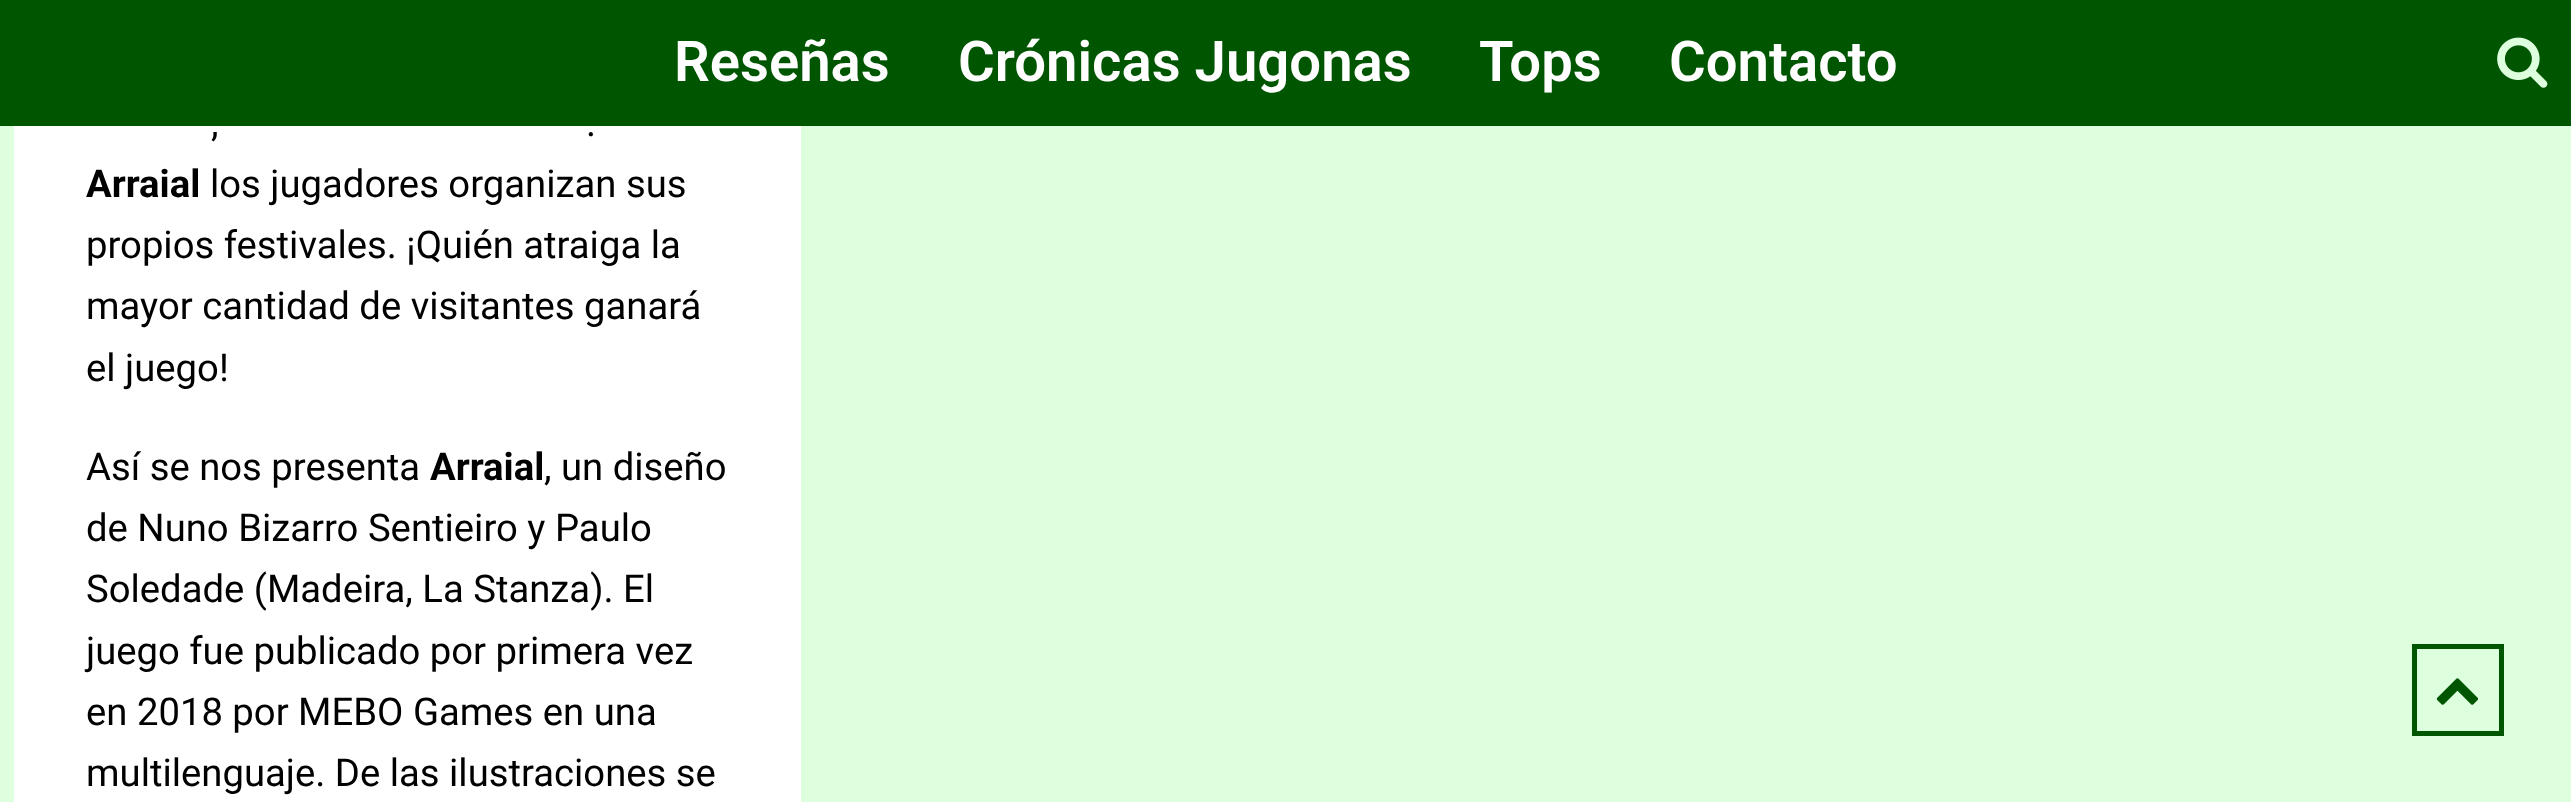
<svg xmlns="http://www.w3.org/2000/svg" xmlns:xlink="http://www.w3.org/1999/xlink" width="2571" height="802" viewBox="0 0 2571 802">
<style>
.cls-1{font:600 56.25px Roboto;fill:#ffffff}
.cls-2{font:38.25px Roboto;fill:#000000}
.cls-3{font:bold 38.25px Roboto;fill:#000000}
</style>
<rect width="100%" height="100%" fill="#ddffdd"/>
<rect fill="#005500" x="0" y="0" width="2571" height="126"/>
<image xlink:href="image0.png" x="2497" y="37" width="51" height="51"/>
<rect fill="#ffffff" x="14" y="126" width="787" height="676"/>
<rect fill="none" stroke="#005500" stroke-width="5" x="2414.5" y="646.5" width="87" height="87"/>
<image xlink:href="image1.png" x="2436" y="678" width="42" height="27"/>
<text class="cls-1" x="674" y="81">Reseñas</text>
<text class="cls-1" x="958" y="81">Crónicas Jugonas</text>
<text class="cls-1" x="1479" y="81">Tops</text>
<text class="cls-1" x="1669" y="81">Contacto</text>
<text class="cls-2" x="211" y="136">,</text>
<text class="cls-2" x="586" y="136">.</text>
<text class="cls-3" x="86" y="197">Arraial</text>
<text class="cls-2" x="210" y="197">los jugadores organizan sus</text>
<text class="cls-2"><tspan x="86" y="258">propios festivales. ¡Quién atraiga la</tspan><tspan x="86" y="319">mayor cantidad de visitantes ganará</tspan><tspan x="86" y="381">el juego!</tspan></text>
<text class="cls-2" x="86" y="480">Así se nos presenta</text>
<text class="cls-3" x="430" y="480">Arraial</text>
<text class="cls-2" x="544" y="480">, un diseño</text>
<text class="cls-2"><tspan x="86" y="541">de Nuno Bizarro Sentieiro y Paulo</tspan><tspan x="86" y="602">Soledade (Madeira, La Stanza). El</tspan><tspan x="86" y="664">juego fue publicado por primera vez</tspan><tspan x="86" y="725">en 2018 por MEBO Games en una</tspan><tspan x="86" y="786">multilenguaje. De las ilustraciones se</tspan></text>
</svg>
